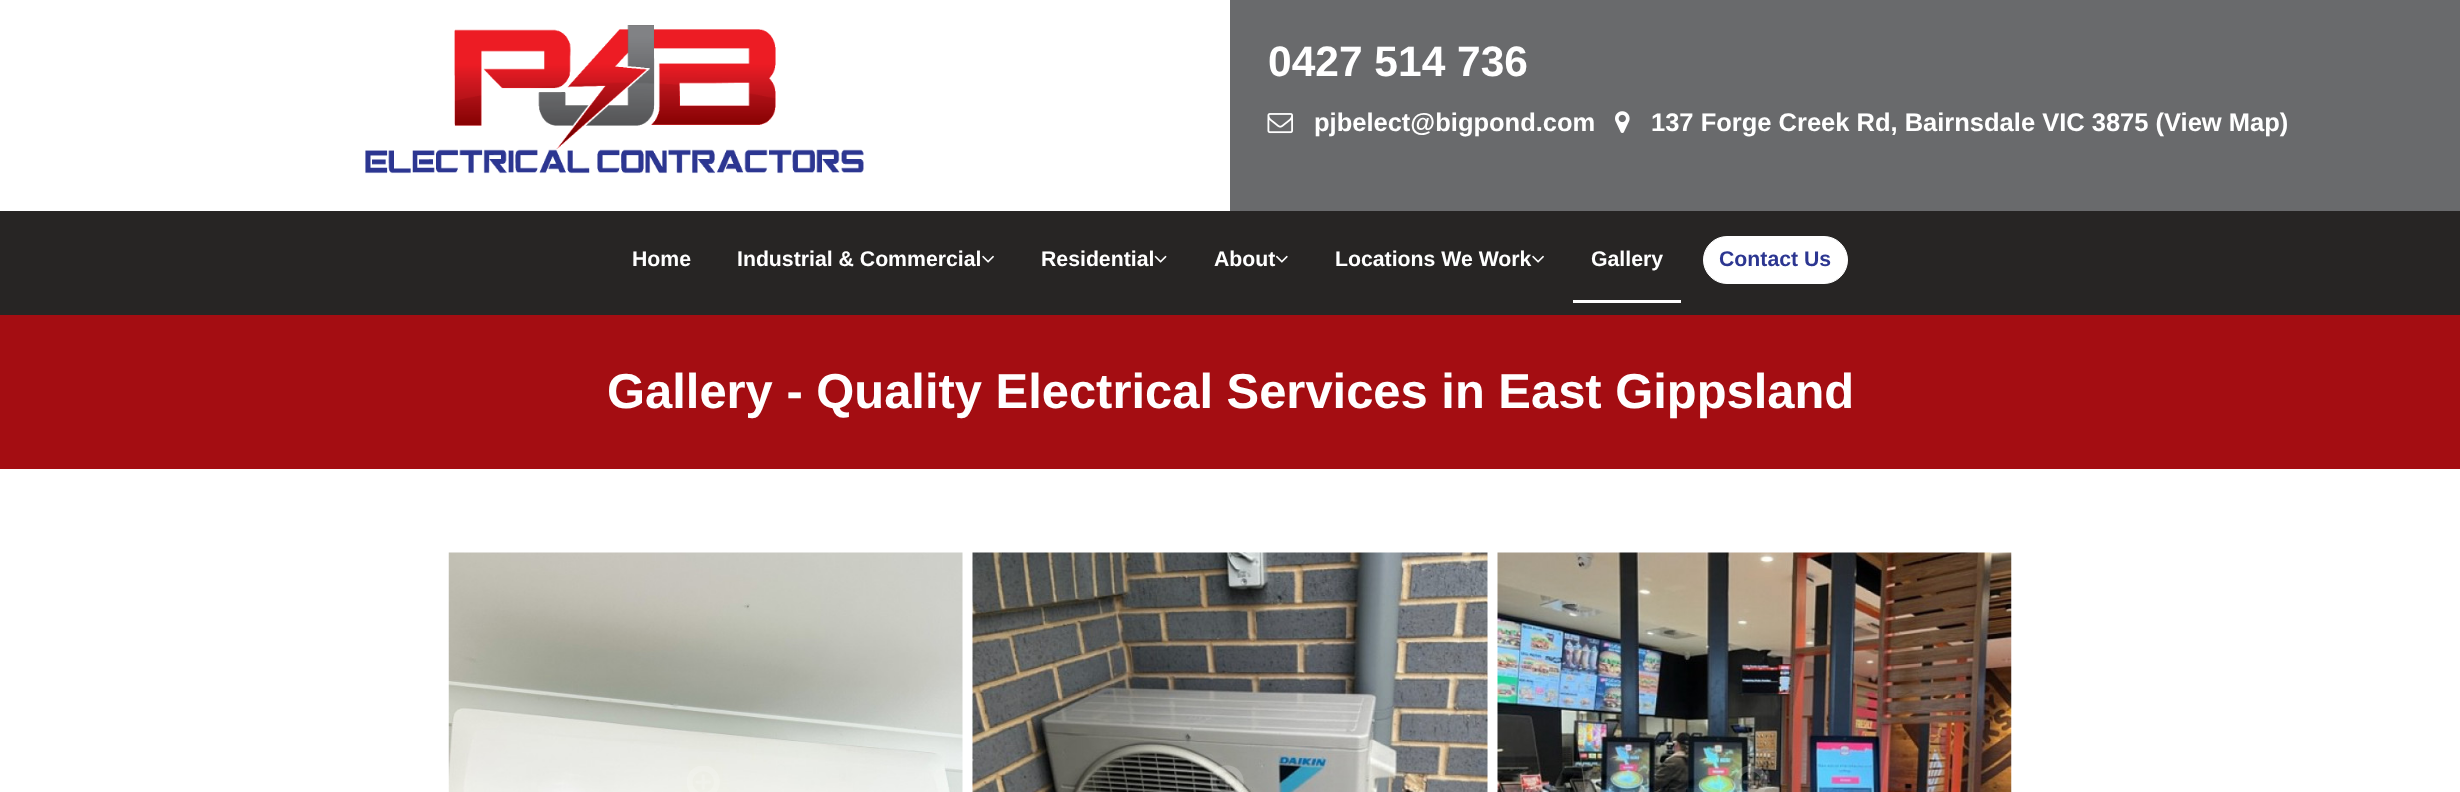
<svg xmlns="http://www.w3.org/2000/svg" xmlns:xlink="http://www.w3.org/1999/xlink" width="2460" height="792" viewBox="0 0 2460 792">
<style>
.cls-1{font:bold 42.5px Liberation Sans;fill:#ffffff}
.cls-2{font:bold 25.5px Liberation Sans;fill:#ffffff}
.cls-3{font:bold 21.25px Liberation Sans;fill:#ffffff}
.cls-4{font:bold 21.25px Liberation Sans;fill:#2c3691}
.cls-5{font:bold 48.9px Liberation Sans;fill:#ffffff}
</style>
<rect width="100%" height="100%" fill="#ffffff"/>
<rect fill="#272524" x="0" y="211" width="2460" height="104"/>
<image xlink:href="image0.png" x="365" y="25" width="499" height="149"/>
<rect fill="#696a6c" x="1230" y="0" width="1230" height="211"/>
<image xlink:href="image1.png" x="1267" y="113" width="26" height="21"/>
<image xlink:href="image2.png" x="1615" y="111" width="15" height="22"/>
<image xlink:href="image3.png" x="982" y="255" width="12" height="8"/>
<image xlink:href="image4.png" x="1154" y="255" width="13" height="8"/>
<image xlink:href="image5.png" x="1276" y="255" width="12" height="8"/>
<image xlink:href="image3.png" x="1532" y="255" width="12" height="8"/>
<rect fill="#ffffff" x="1573" y="300" width="108" height="3"/>
<rect fill="#ffffff" stroke="#ffffff" x="1703.5" y="236.5" width="144" height="47" rx="23.5"/>
<rect fill="#a40d12" x="0" y="315" width="2460" height="154"/>
<image xlink:href="image6.png" x="448" y="552" width="515" height="240"/>
<image xlink:href="image7.png" x="687" y="766" width="33" height="26"/>
<image xlink:href="image8.png" x="972" y="552" width="516" height="240"/>
<image xlink:href="image9.png" x="1210" y="765" width="34" height="27"/>
<image xlink:href="image10.png" x="1497" y="552" width="515" height="240"/>
<image xlink:href="image11.png" x="1734" y="765" width="34" height="27"/>
<text class="cls-1" x="1268" y="76">0427 514 736</text>
<text class="cls-2" x="1314" y="131">pjbelect@bigpond.com</text>
<text class="cls-2" x="1651" y="131">137 Forge Creek Rd, Bairnsdale VIC 3875 (View Map)</text>
<text class="cls-3" x="632" y="266">Home</text>
<text class="cls-3" x="737" y="266">Industrial &amp; Commercial</text>
<text class="cls-3" x="1041" y="266">Residential</text>
<text class="cls-3" x="1214" y="266">About</text>
<text class="cls-3" x="1335" y="266">Locations We Work</text>
<text class="cls-3" x="1591" y="266">Gallery</text>
<text class="cls-4" x="1719" y="266">Contact Us</text>
<text class="cls-5" x="607" y="408">Gallery - Quality Electrical Services in East Gippsland</text>
</svg>
